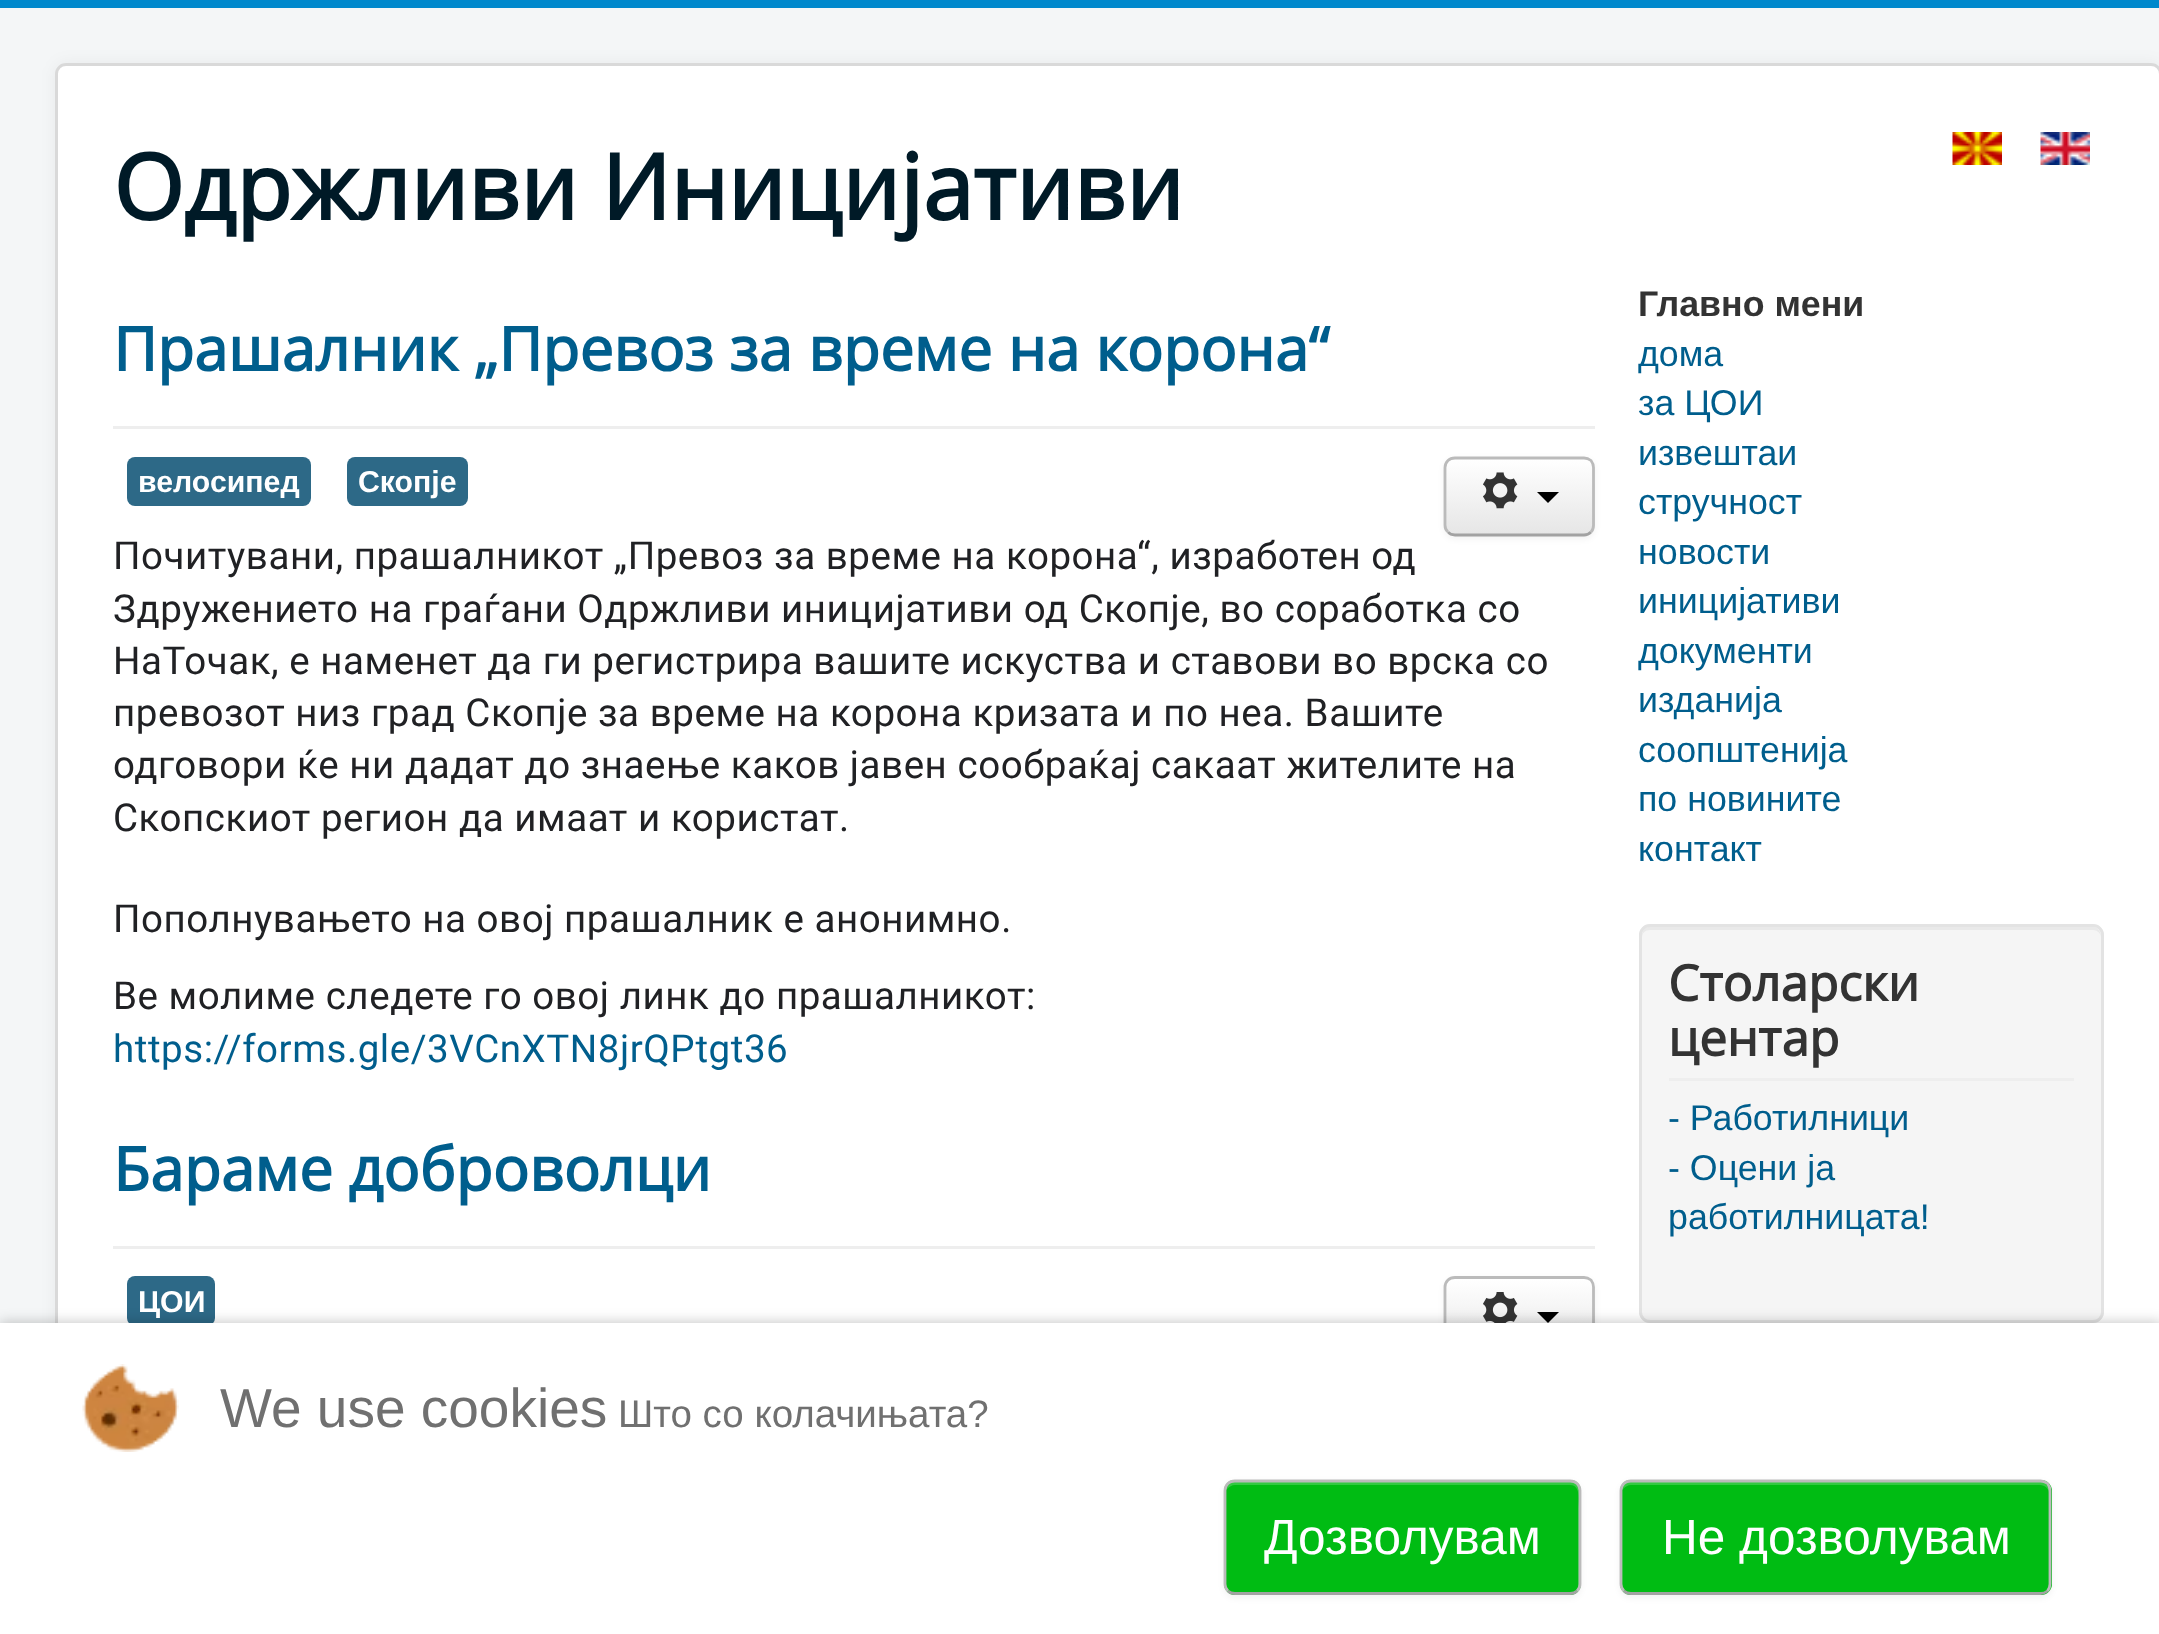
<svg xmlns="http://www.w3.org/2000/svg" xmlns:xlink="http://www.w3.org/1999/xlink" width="2159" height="1634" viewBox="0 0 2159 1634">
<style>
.cls-1{font:bold 90.75px Open Sans;fill:#001a27}
.cls-2{font:bold 60.5px Open Sans;fill:#005e8d}
.cls-3{font:bold 30.25px Liberation Sans;fill:#ffffff}
.cls-4{font:38.5px Roboto;letter-spacing:0.55px;fill:#202124}
.cls-5{font:38.5px Roboto;letter-spacing:0.55px;fill:#005e8d}
.cls-6{font:bold 35.75px Liberation Sans;fill:#333333}
.cls-7{font:35.75px Liberation Sans;fill:#005e8d}
.cls-8{font:bold 49.5px Open Sans;fill:#333333}
.cls-9{font:55px Liberation Sans;fill:#707070}
.cls-10{font:38.5px Liberation Sans;fill:#707070}
.cls-11{font:49.5px Liberation Sans;fill:#ffffff}
</style>
<defs>
<clipPath id="clip1"><rect x="1444" y="457" width="151" height="79" rx="11"/></clipPath>
<linearGradient id="g1" gradientUnits="userSpaceOnUse" x1="1519" y1="459" x2="1519" y2="534"><stop offset="0" stop-color="#ffffff"/><stop offset="1" stop-color="#e6e6e6"/></linearGradient>
<clipPath id="clip2"><rect x="1444" y="1276" width="151" height="80" rx="11"/></clipPath>
<linearGradient id="g2" gradientUnits="userSpaceOnUse" x1="1519" y1="1279" x2="1519" y2="1353"><stop offset="0" stop-color="#ffffff"/><stop offset="1" stop-color="#e6e6e6"/></linearGradient>
</defs>
<rect width="100%" height="100%" fill="#f4f6f7"/>
<rect fill="#0088cc" x="0" y="0" width="2159" height="8"/>
<rect fill="#000000" fill-opacity="0.05" filter="blur(8px)" x="55" y="63" width="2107" height="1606" rx="11"/>
<rect fill="#ffffff" x="55" y="63" width="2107" height="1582" rx="11"/>
<rect fill="none" stroke="#000000" stroke-opacity="0.15" stroke-width="3" x="56.5" y="64.5" width="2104" height="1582" rx="9.5"/>
<image xlink:href="image0.png" x="1952" y="132" width="50" height="33"/>
<image xlink:href="image1.png" x="2040" y="132" width="50" height="33"/>
<rect fill="#eeeeee" x="113" y="426" width="1482" height="3"/>
<rect fill="#2d6987" x="127" y="457" width="184" height="49" rx="8"/>
<rect fill="#2d6987" x="347" y="457" width="121" height="49" rx="8"/>
<rect fill="#000000" fill-opacity="0.05" filter="blur(3px)" x="1444" y="459" width="151" height="80" rx="11"/>
<g clip-path="url(#clip1)">
<rect fill="url(#g1)" x="1444" y="459" width="151" height="75"/>
</g>
<path fill="none" stroke="#a2a2a2" stroke-width="2.8" d="M1591 532C1589 534 1586.5 535 1584 535H1455C1452 535 1449.5 534 1448 532"/>
<path fill="none" stroke="#bbbbbb" stroke-width="2.8" d="M1448 532C1446 530.5 1445 528 1445 525V467.5C1445 465 1446 462.5 1448 460.5C1449.5 459 1452 458 1455 458H1584C1586.5 458 1589 459 1591 460.5C1592.5 462.5 1593.5 465 1593.5 467.5V525C1593.5 528 1592.5 530.5 1591 532"/>
<image xlink:href="image2.png" x="1483" y="472" width="35" height="37"/>
<path fill="#000000" d="M1537 492H1559L1548 503Z"/>
<rect fill="#eeeeee" x="113" y="1246" width="1482" height="3"/>
<rect fill="#2d6987" x="127" y="1276" width="88" height="50" rx="8"/>
<rect fill="#000000" fill-opacity="0.05" filter="blur(3px)" x="1444" y="1279" width="151" height="80" rx="11"/>
<g clip-path="url(#clip2)">
<rect fill="url(#g2)" x="1444" y="1279" width="151" height="44"/>
</g>
<path fill="none" stroke="#bbbbbb" stroke-width="2.8" d="M1448 1351.5C1446 1350 1445 1347.5 1445 1345V1287C1445 1284.5 1446 1282 1448 1280C1449.5 1278.5 1452 1277.5 1455 1277.5H1584C1586.5 1277.5 1589 1278.5 1591 1280C1592.5 1282 1593.5 1284.5 1593.5 1287V1345C1593.5 1347.5 1592.5 1350 1591 1351.5"/>
<image xlink:href="image3.png" x="1483" y="1292" width="35" height="31"/>
<path fill="#000000" d="M1537 1312H1559L1548 1323Z"/>
<rect fill="#f5f5f5" x="1639" y="924" width="465" height="399" rx="11"/>
<path fill="#e9e9e9" d="M1650 930H2093C2097 930 2101 933 2101 938C2101 933 2099 927 2093 927H1648C1643 928 1642 933 1642 938C1642 933 1645 930 1650 930Z"/>
<rect fill="none" stroke="#e3e3e3" stroke-width="3" x="1640.5" y="925.5" width="462" height="396" rx="9.5"/>
<rect fill="#eeeeee" x="1669" y="1078" width="405" height="3"/>
<rect fill="#000000" fill-opacity="0.25" filter="blur(7px)" x="0" y="1323" width="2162" height="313"/>
<rect fill="#ffffff" x="0" y="1323" width="2159" height="311"/>
<image xlink:href="image4.png" x="82" y="1364" width="97" height="88"/>
<rect fill="#000000" fill-opacity="0.05" filter="blur(3px)" x="1224" y="1482" width="357" height="116" rx="11"/>
<rect fill="#00bc13" x="1224" y="1480" width="357" height="115" rx="11"/>
<path fill="#33c942" d="M1235 1485H1570C1582 1485 1578 1503 1578 1509V1588C1579 1587 1579 1585 1579 1584V1490C1579 1486 1575 1482 1571 1482H1235C1231 1482 1227 1485 1227 1489C1229 1487 1232 1485 1235 1485Z"/>
<path fill="none" stroke="#a2a2a2" stroke-width="2.8" d="M1577 1591C1575.5 1592.5 1573 1593.5 1570 1593.5H1235C1232 1593.5 1229.5 1592.5 1228 1591"/>
<path fill="none" stroke="#bbbbbb" stroke-width="2.8" d="M1228 1591C1226 1589 1225 1586.5 1225 1584V1490.5C1225 1488 1226 1485.5 1228 1483.5C1229.5 1482 1232 1481 1235 1481H1570C1573 1481 1575.5 1482 1577 1483.5C1579 1485.5 1580 1488 1580 1490.5V1584C1580 1586.5 1579 1589 1577 1591"/>
<rect fill="#000000" fill-opacity="0.05" filter="blur(3px)" x="1620" y="1482" width="432" height="116" rx="11"/>
<rect fill="#00bc13" x="1620" y="1480" width="432" height="115" rx="11"/>
<path fill="#33c942" d="M1631 1485H2040C2045 1485 2049 1489 2049 1493V1490C2049 1486 2045 1482 2041 1482H1631C1627 1482 1623 1485 1623 1489C1625 1487 1628 1485 1631 1485Z"/>
<path fill="none" stroke="#a2a2a2" stroke-width="2.8" d="M2047.5 1591C2045.5 1592.5 2043 1593.5 2040.5 1593.5H1631C1628 1593.5 1625.5 1592.5 1624 1591"/>
<path fill="none" stroke="#bbbbbb" stroke-width="2.8" d="M1624 1591C1622 1589 1621 1586.5 1621 1584V1490.5C1621 1488 1622 1485.5 1624 1483.5C1625.5 1482 1628 1481 1631 1481H2040.5C2043 1481 2045.5 1482 2047.5 1483.5C2049 1485.5 2050 1488 2050 1490.5V1584C2050 1586.5 2049 1589 2047.5 1591"/>
<text class="cls-1" x="113" y="220">Одржливи Иницијативи</text>
<text class="cls-2" x="113" y="371">Прашалник „Превоз за време на корона“</text>
<text class="cls-3" x="138" y="492">велосипед</text>
<text class="cls-3" x="358" y="492">Скопје</text>
<text class="cls-4"><tspan x="113" y="569">Почитувани, прашалникот „Превоз за време на корона“, изработен од</tspan><tspan x="113" y="622">Здружението на граѓани Одржливи иницијативи од Скопје, во соработка со</tspan><tspan x="113" y="674">НаТочак, е наменет да ги регистрира вашите искуства и ставови во врска со</tspan><tspan x="113" y="726">превозот низ град Скопје за време на корона кризата и по неа. Вашите</tspan><tspan x="113" y="778">одговори ќе ни дадат до знаење каков јавен сообраќај сакаат жителите на</tspan><tspan x="113" y="831">Скопскиот регион да имаат и користат.</tspan></text>
<text class="cls-4" x="113" y="932">Пополнувањето на овој прашалник е анонимно.</text>
<text class="cls-4" x="113" y="1009">Ве молиме следете го овој линк до прашалникот:</text>
<text class="cls-5" x="113" y="1062">https://forms.gle/3VCnXTN8jrQPtgt36</text>
<text class="cls-2" x="113" y="1191">Бараме доброволци</text>
<text class="cls-3" x="138" y="1312">ЦОИ</text>
<text class="cls-6" x="1638" y="316">Главно мени</text>
<text class="cls-7"><tspan x="1638" y="366">дома</tspan><tspan x="1638" y="415">за ЦОИ</tspan><tspan x="1638" y="465">извештаи</tspan><tspan x="1638" y="514">стручност</tspan><tspan x="1638" y="564">новости</tspan><tspan x="1638" y="613">иницијативи</tspan><tspan x="1638" y="663">документи</tspan><tspan x="1638" y="712">изданија</tspan><tspan x="1638" y="762">соопштенија</tspan><tspan x="1638" y="811">по новините</tspan><tspan x="1638" y="861">контакт</tspan></text>
<text class="cls-8"><tspan x="1668" y="1001">Столарски</tspan><tspan x="1668" y="1056">центар</tspan></text>
<text class="cls-7"><tspan x="1668" y="1130">- Работилници</tspan><tspan x="1668" y="1180">- Оцени ја</tspan><tspan x="1668" y="1229">работилницата!</tspan></text>
<text class="cls-9" x="220" y="1427">We use cookies</text>
<text class="cls-10" x="618" y="1427">Што со колачињата?</text>
<text class="cls-11" x="1264" y="1554">Дозволувам</text>
<text class="cls-11" x="1662" y="1554">Не дозволувам</text>
</svg>
